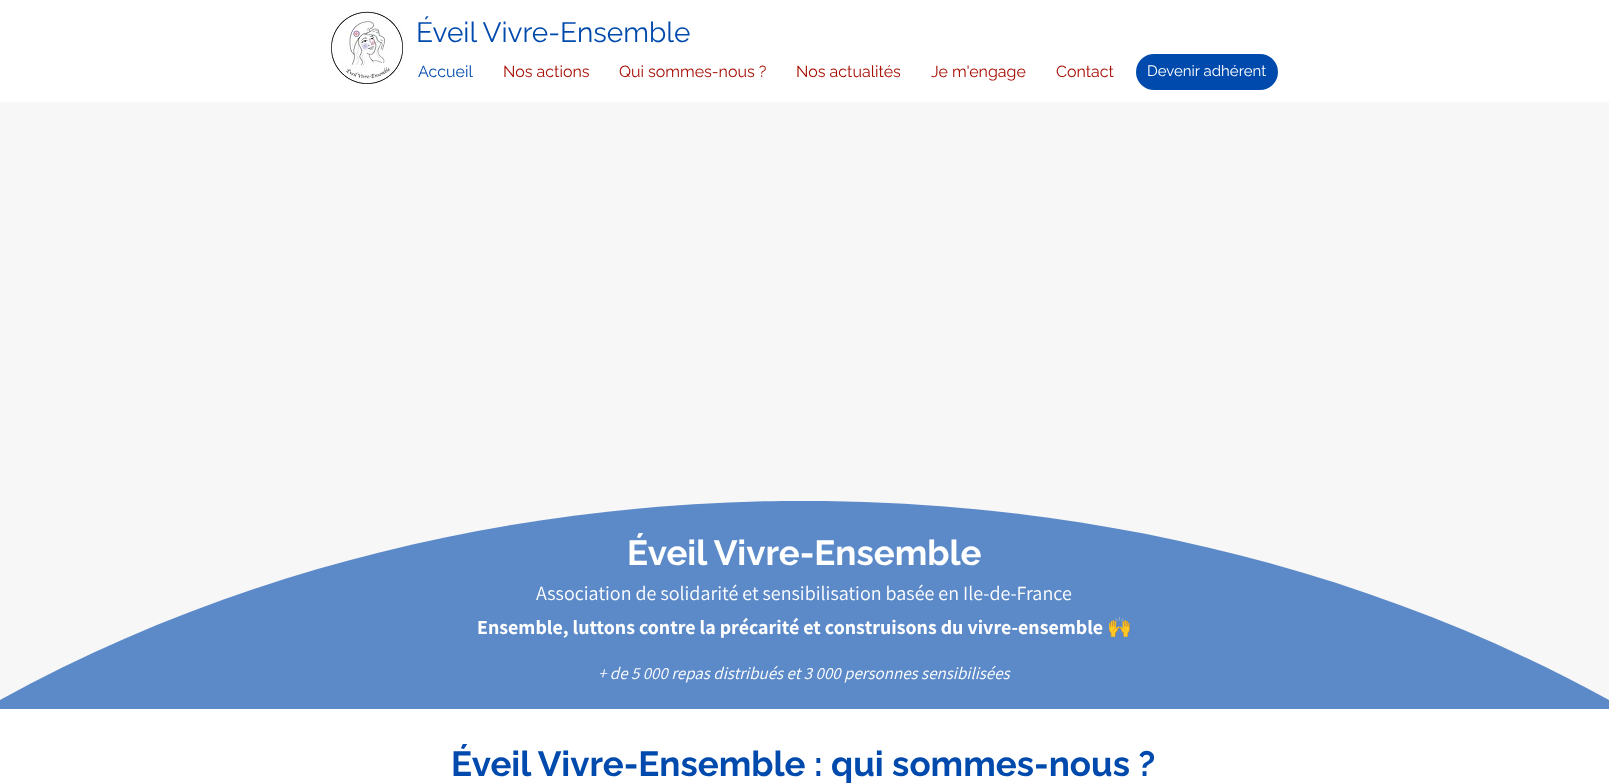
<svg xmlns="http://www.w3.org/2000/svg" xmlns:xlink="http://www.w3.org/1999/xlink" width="1609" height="783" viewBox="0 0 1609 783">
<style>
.cls-1{font:28px Raleway;fill:#004aad}
.cls-2{font:16px Raleway;fill:#004aad}
.cls-3{font:16px Raleway;fill:#a60c00}
.cls-4{font:15px 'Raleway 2';fill:#ffffff}
.cls-5{font:bold 35px Raleway;fill:#ffffff}
.cls-6{font:20px Assistant;fill:#ffffff}
.cls-7{font:bold 20px Assistant;fill:#ffffff}
.cls-8{font:bold 20px Noto Color Emoji;fill:#ffffff}
.cls-9{font:italic 17px Assistant;fill:#ffffff}
.cls-10{font:bold 35px Raleway;fill:#004aad}
</style>
<defs>
<clipPath id="clip1"><rect x="0" y="501" width="1609" height="208"/></clipPath>
</defs>
<rect width="100%" height="100%" fill="#ffffff"/>
<image xlink:href="image0.png" x="331" y="11" width="72" height="73"/>
<rect fill="#004aad" x="1136" y="54" width="142" height="36" rx="18"/>
<rect fill="#f7f7f7" x="0" y="102" width="1609" height="598"/>
<g clip-path="url(#clip1)">
<path fill="#5c8ac9" d="M1609 700C1127 435 482 434 0 700V709H1609Z"/>
</g>
<text class="cls-1" x="416" y="42">Éveil Vivre-Ensemble</text>
<text class="cls-2" x="418" y="77">Accueil</text>
<text class="cls-3" x="503" y="77">Nos actions</text>
<text class="cls-3" x="619" y="77">Qui sommes-nous ?</text>
<text class="cls-3" x="796" y="77">Nos actualités</text>
<text class="cls-3" x="931" y="77">Je m'engage</text>
<text class="cls-3" x="1056" y="77">Contact</text>
<text class="cls-4" x="1147" y="76">Devenir adhérent</text>
<text class="cls-5" x="627" y="565">Éveil Vivre-Ensemble</text>
<text class="cls-6" x="536" y="600">Association de solidarité et sensibilisation basée en Ile-de-France</text>
<text class="cls-7" x="477" y="634">Ensemble, luttons contre la précarité et construisons du vivre-ensemble</text>
<text class="cls-8" x="1107" y="634">🙌</text>
<text class="cls-9" x="598" y="679">+ de 5 000 repas distribués et 3 000 personnes sensibilisées</text>
<text class="cls-10" x="451" y="776">Éveil Vivre-Ensemble : qui sommes-nous ?</text>
</svg>
